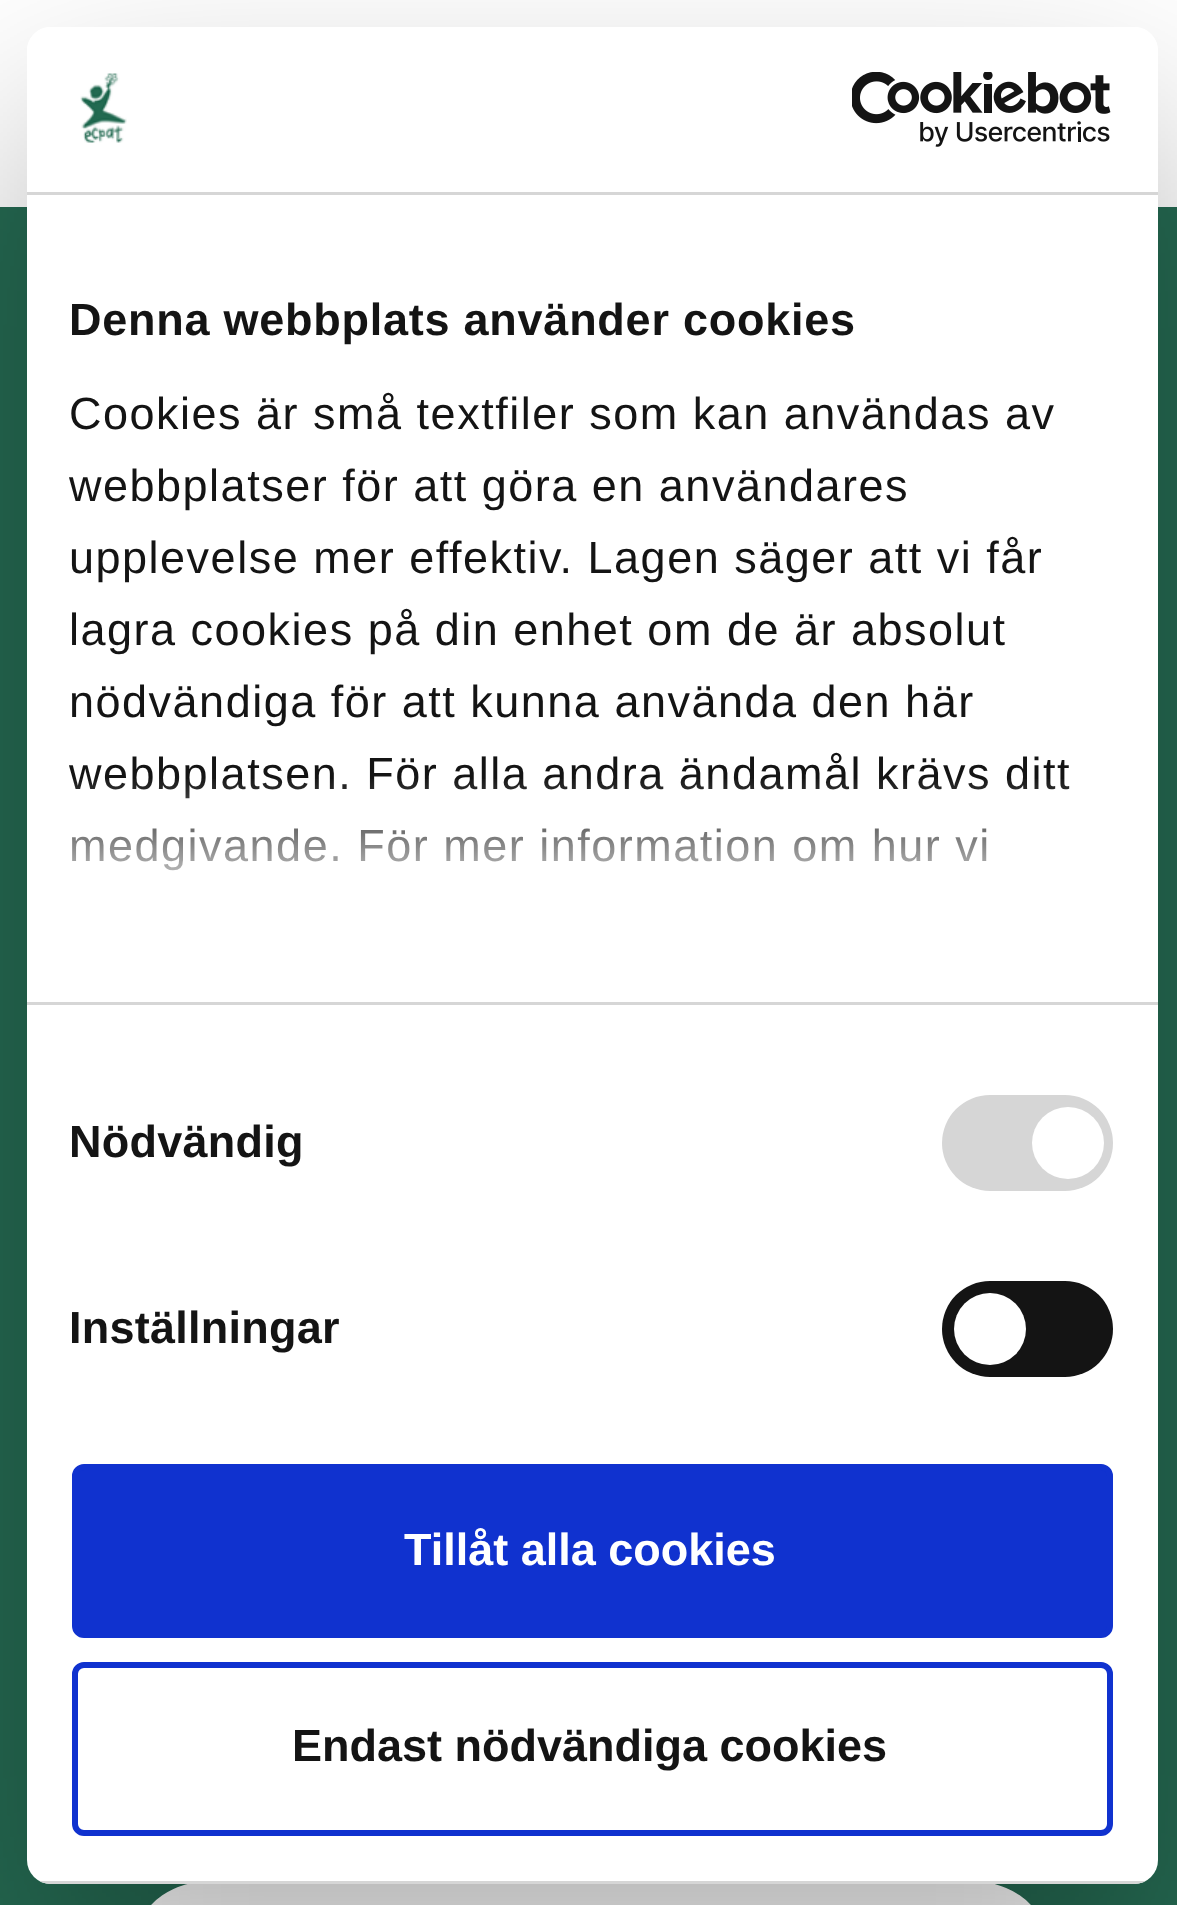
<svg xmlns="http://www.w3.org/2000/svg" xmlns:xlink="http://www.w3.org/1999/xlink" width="1177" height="1905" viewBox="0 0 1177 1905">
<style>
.cls-1{font:bold 45px Liberation Sans;letter-spacing:0.75px;fill:#141414}
.cls-2{font:45px Liberation Sans;letter-spacing:1.5px;fill:#141414}
.cls-3{font:bold 45px Liberation Sans;letter-spacing:0.25px;fill:#141414}
.cls-4{font:bold 45px Liberation Sans;fill:#ffffff}
.cls-5{font:bold 45px Liberation Sans;fill:#141414}
</style>
<defs>
<clipPath id="clip1"><path d="M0 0H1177V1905H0ZM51 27H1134C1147.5 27 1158 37.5 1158 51V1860C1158 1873.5 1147.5 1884 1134 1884H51C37.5 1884 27 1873.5 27 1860V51C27 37.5 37.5 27 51 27Z" clip-rule="evenodd"/></clipPath>
<clipPath id="clip2"><rect x="27" y="27" width="1131" height="1857" rx="24"/></clipPath>
<linearGradient id="g1" gradientUnits="userSpaceOnUse" x1="572" y1="1001" x2="572" y2="776"><stop offset="0" stop-color="#ffffff"/><stop offset="0.5" stop-color="#ffffff" stop-opacity="0.8"/><stop offset="1" stop-color="#ffffff" stop-opacity="0"/></linearGradient>
</defs>
<rect width="100%" height="100%" fill="#256a52"/>
<rect fill="#ffffff" x="0" y="0" width="1177" height="207"/>
<rect fill="#ffffff" stroke="#ffffff" stroke-width="3" x="142.5" y="1882.5" width="897" height="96" rx="70.5"/>
<g clip-path="url(#clip1)">
<rect fill="#000000" fill-opacity="0.3" filter="blur(102px)" x="27" y="123" width="1131" height="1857" rx="24"/>
</g>
<rect fill="#ffffff" x="27" y="27" width="1131" height="1857" rx="24"/>
<rect fill="#d6d6d6" x="27" y="192" width="1131" height="3"/>
<image xlink:href="image0.png" x="80" y="73" width="47" height="70"/>
<image xlink:href="image1.png" x="852" y="72" width="259" height="75"/>
<rect fill="#d6d6d6" x="27" y="1002" width="1131" height="3"/>
<rect fill="#d6d6d6" x="942" y="1095" width="171" height="96" rx="48"/>
<circle fill="#ffffff" cx="1068" cy="1143" r="36"/>
<rect fill="#141414" x="942" y="1281" width="171" height="96" rx="48"/>
<circle fill="#ffffff" cx="990" cy="1329" r="36"/>
<g clip-path="url(#clip2)">
<rect fill="#d6d6d6" x="39" y="1881" width="1107" height="3"/>
</g>
<rect fill="#1032cf" stroke="#1032cf" stroke-width="6" x="75" y="1467" width="1035" height="168" rx="9"/>
<rect fill="none" stroke="#1032cf" stroke-width="6" x="75" y="1665" width="1035" height="168" rx="9"/>
<text class="cls-1" x="69" y="335">Denna webbplats använder cookies</text>
<text class="cls-2"><tspan x="69" y="429">Cookies är små textfiler som kan användas av</tspan><tspan x="69" y="501">webbplatser för att göra en användares</tspan><tspan x="69" y="573">upplevelse mer effektiv. Lagen säger att vi får</tspan><tspan x="69" y="645">lagra cookies på din enhet om de är absolut</tspan><tspan x="69" y="717">nödvändiga för att kunna använda den här</tspan><tspan x="69" y="789">webbplatsen. För alla andra ändamål krävs ditt</tspan><tspan x="69" y="861">medgivande. För mer information om hur vi</tspan></text>
<rect fill="url(#g1)" x="72" y="779" width="998" height="92"/>
<text class="cls-3" x="69" y="1157">Nödvändig</text>
<text class="cls-3" x="69" y="1343">Inställningar</text>
<text class="cls-4" x="404" y="1565">Tillåt alla cookies</text>
<text class="cls-5" x="292" y="1761">Endast nödvändiga cookies</text>
</svg>
